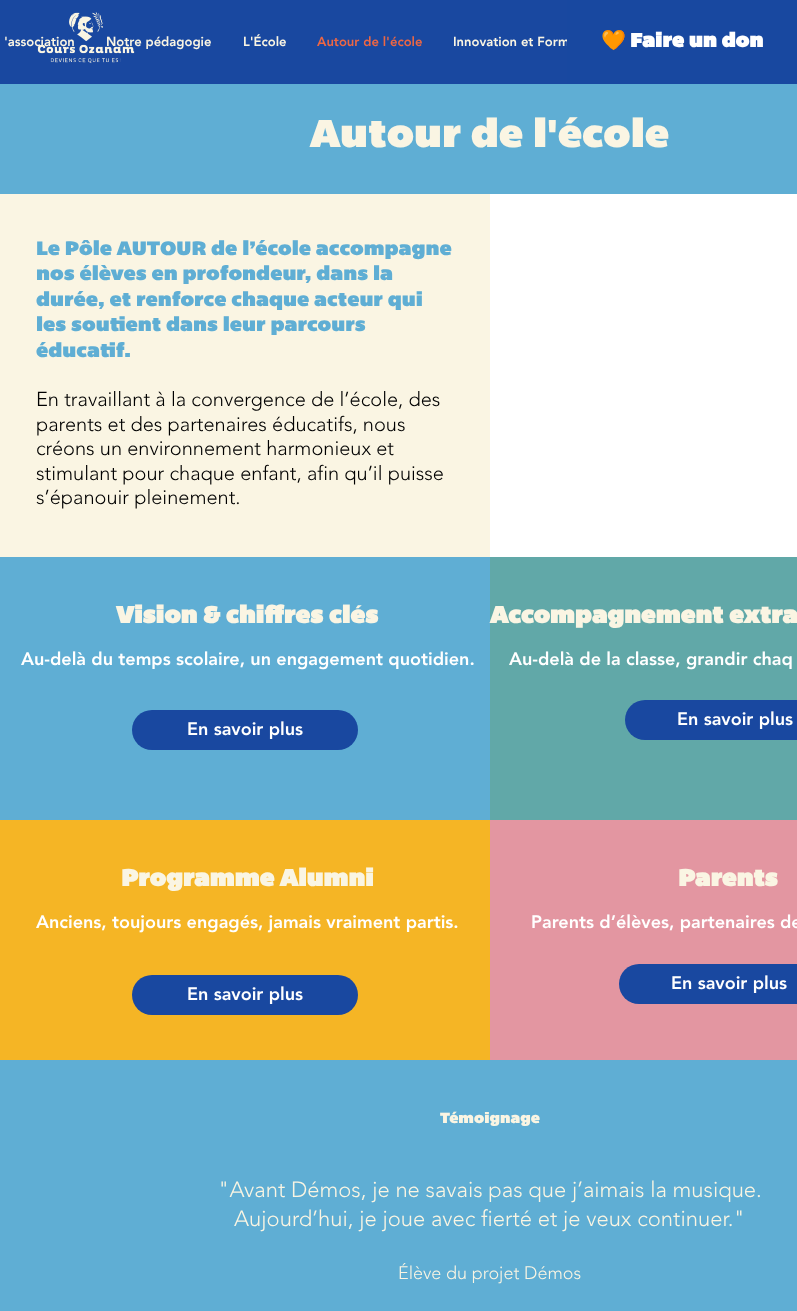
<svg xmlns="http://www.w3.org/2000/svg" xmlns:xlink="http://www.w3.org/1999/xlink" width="797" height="1311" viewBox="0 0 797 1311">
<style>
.cls-1{font:900 13px 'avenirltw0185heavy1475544';fill:#faf5e3}
.cls-2{font:900 13px 'avenirltw0185heavy1475544';fill:#ed6744}
.cls-3{font:bold 20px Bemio;fill:#ffffff}
.cls-4{font:bold 20px Noto Color Emoji;fill:#ffffff}
.cls-5{font:40px Bemio;fill:#faf5e3}
.cls-6{font:20px Bemio;fill:#5faed4}
.cls-7{font:300 20px 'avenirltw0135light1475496';fill:#000000}
.cls-8{font:bold 24px Bemio;fill:#faf5e3}
.cls-9{font:900 18px 'avenirltw0185heavy1475544';fill:#ffffff}
.cls-10{font:15px Bemio;fill:#faf5e3}
.cls-11{font:300 22px 'avenirltw0135light1475496';fill:#faf5e3}
.cls-12{font:300 18px 'avenirltw0135light1475496';fill:#faf5e3}
</style>
<rect width="100%" height="100%" fill="#5faed4"/>
<rect fill="#1948a0" x="0" y="0" width="567" height="84"/>
<rect fill="#faf5e3" x="0" y="194" width="490" height="363"/>
<rect fill="#ffffff" x="490" y="194" width="307" height="363"/>
<rect fill="#1948a0" x="132" y="710" width="226" height="40" rx="20"/>
<rect fill="#61a8a8" x="490" y="557" width="307" height="263"/>
<rect fill="#1948a0" x="625" y="700" width="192" height="40" rx="20"/>
<rect fill="#f5b525" x="0" y="820" width="490" height="240"/>
<rect fill="#1948a0" x="132" y="975" width="226" height="40" rx="20"/>
<rect fill="#e396a1" x="490" y="820" width="307" height="240"/>
<rect fill="#1948a0" x="619" y="964" width="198" height="40" rx="20"/>
<text class="cls-1" x="4" y="46">'association</text>
<text class="cls-1" x="106" y="46">Notre pédagogie</text>
<image xlink:href="image0.png" x="37" y="12" width="98" height="52"/>
<text class="cls-1" x="243" y="46">L'École</text>
<text class="cls-2" x="317" y="46">Autour de l'école</text>
<text class="cls-1" x="453" y="46">Innovation et Form</text>
<rect fill="#1848a0" x="567" y="0" width="230" height="84"/>
<text class="cls-3" x="630" y="47">Faire un don</text>
<text class="cls-4" x="601" y="47">🧡</text>
<text class="cls-5" x="310" y="147">Autour de l'école</text>
<text class="cls-6"><tspan x="36" y="255">Le Pôle AUTOUR de l’école accompagne</tspan><tspan x="36" y="280">nos élèves en profondeur, dans la</tspan><tspan x="36" y="306">durée, et renforce chaque acteur qui</tspan><tspan x="36" y="331">les soutient dans leur parcours</tspan><tspan x="36" y="357">éducatif.</tspan></text>
<text class="cls-7"><tspan x="36" y="406">En travaillant à la convergence de l’école, des</tspan><tspan x="36" y="431">parents et des partenaires éducatifs, nous</tspan><tspan x="36" y="455">créons un environnement harmonieux et</tspan><tspan x="36" y="480">stimulant pour chaque enfant, afin qu’il puisse</tspan><tspan x="36" y="504">s’épanouir pleinement.</tspan></text>
<text class="cls-8" x="116" y="623">Vision &amp; chiffres clés</text>
<text class="cls-9" x="21" y="665">Au-delà du temps scolaire, un engagement quotidien.</text>
<text class="cls-9" x="187" y="735">En savoir plus</text>
<text class="cls-8" x="490" y="623">Accompagnement extra</text>
<text class="cls-9" x="509" y="665">Au-delà de la classe, grandir chaq</text>
<text class="cls-9" x="677" y="725">En savoir plus</text>
<text class="cls-8" x="121" y="886">Programme Alumni</text>
<text class="cls-9" x="36" y="928">Anciens, toujours engagés, jamais vraiment partis.</text>
<text class="cls-9" x="187" y="1000">En savoir plus</text>
<text class="cls-8" x="678" y="886">Parents</text>
<text class="cls-9" x="531" y="928">Parents d’élèves, partenaires de</text>
<text class="cls-9" x="671" y="989">En savoir plus</text>
<text class="cls-10" x="440" y="1123">Témoignage</text>
<text class="cls-11" x="218" y="1197">"Avant Démos, je ne savais pas que j’aimais la musique.</text>
<text class="cls-11" x="234" y="1226">Aujourd’hui, je joue avec fierté et je veux continuer."</text>
<text class="cls-12" x="398" y="1279">Élève du projet Démos</text>
</svg>
